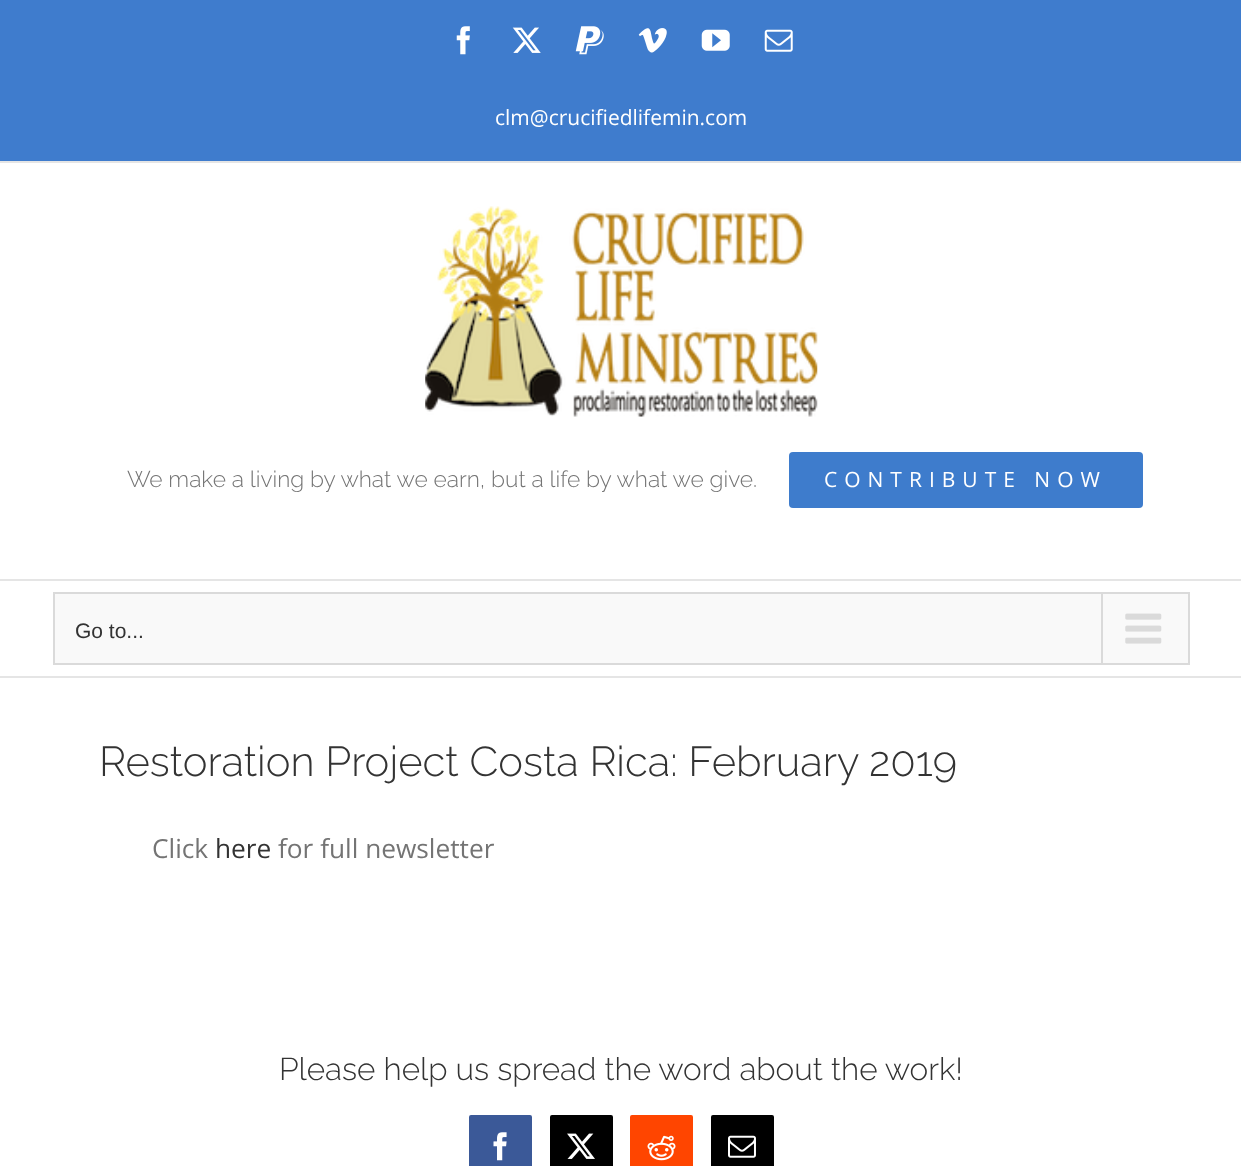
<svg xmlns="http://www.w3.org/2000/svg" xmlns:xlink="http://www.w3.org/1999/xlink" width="1241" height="1166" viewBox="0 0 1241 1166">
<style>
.cls-1{font:21px Open Sans;fill:#ffffff}
.cls-2{font:300 22.75px Raleway;fill:#747474}
.cls-3{font:21px Open Sans;letter-spacing:7px;fill:#ffffff}
.cls-4{font:21px Liberation Sans;fill:#333333}
.cls-5{font:300 41.75px Raleway;fill:#333333}
.cls-6{font:26.25px Open Sans;fill:#747474}
.cls-7{font:26.25px Open Sans;fill:#333333}
.cls-8{font:300 31.5px Raleway;fill:#333333}
</style>
<rect width="100%" height="100%" fill="#ffffff"/>
<rect fill="#3f7ccd" x="0" y="0" width="1241" height="161"/>
<rect fill="#e5e5e5" x="0" y="161" width="1241" height="2"/>
<image xlink:href="image0.png" x="456" y="26" width="14" height="29"/>
<image xlink:href="image1.png" x="512" y="27" width="29" height="26"/>
<image xlink:href="image2.png" x="575" y="26" width="29" height="29"/>
<image xlink:href="image3.png" x="638" y="28" width="29" height="25"/>
<image xlink:href="image4.png" x="701" y="29" width="29" height="22"/>
<image xlink:href="image5.png" x="764" y="29" width="29" height="23"/>
<rect fill="#e5e5e5" x="0" y="579" width="1241" height="2"/>
<image xlink:href="image6.png" x="425" y="206" width="393" height="211"/>
<rect fill="#3e7ccc" x="789" y="452" width="354" height="56" rx="4"/>
<rect fill="#e5e5e5" x="0" y="676" width="1241" height="2"/>
<rect fill="#f9f9f9" stroke="#dadada" stroke-width="2" x="54" y="593" width="1135" height="71"/>
<rect fill="#dadada" x="1101" y="593" width="2" height="70"/>
<image xlink:href="image7.png" x="1125" y="613" width="37" height="31"/>
<rect fill="#3b5998" stroke="#3b5998" stroke-width="2" x="470" y="1116" width="61" height="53" rx="1"/>
<image xlink:href="image8.png" x="493" y="1132" width="14" height="29"/>
<rect fill="#000000" stroke="#000000" stroke-width="2" x="551" y="1116" width="61" height="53" rx="1"/>
<image xlink:href="image9.png" x="567" y="1133" width="28" height="26"/>
<rect fill="#ff4500" stroke="#ff4500" stroke-width="2" x="631" y="1116" width="61" height="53" rx="1"/>
<image xlink:href="image10.png" x="647" y="1135" width="29" height="26"/>
<rect fill="#000000" stroke="#000000" stroke-width="2" x="712" y="1116" width="61" height="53" rx="1"/>
<image xlink:href="image11.png" x="728" y="1135" width="28" height="23"/>
<text class="cls-1" x="495" y="125">clm@crucifiedlifemin.com</text>
<text class="cls-2" x="127" y="487">We make a living by what we earn, but a life by what we give.</text>
<text class="cls-3" x="824" y="487">CONTRIBUTE NOW</text>
<text class="cls-4" x="75" y="638">Go to...</text>
<text class="cls-5" x="99" y="776">Restoration Project Costa Rica: February 2019</text>
<text class="cls-6" x="152" y="858">Click</text>
<text class="cls-7" x="215" y="858">here</text>
<text class="cls-6" x="278" y="858">for full newsletter</text>
<text class="cls-8" x="279" y="1080">Please help us spread the word about the work!</text>
</svg>
